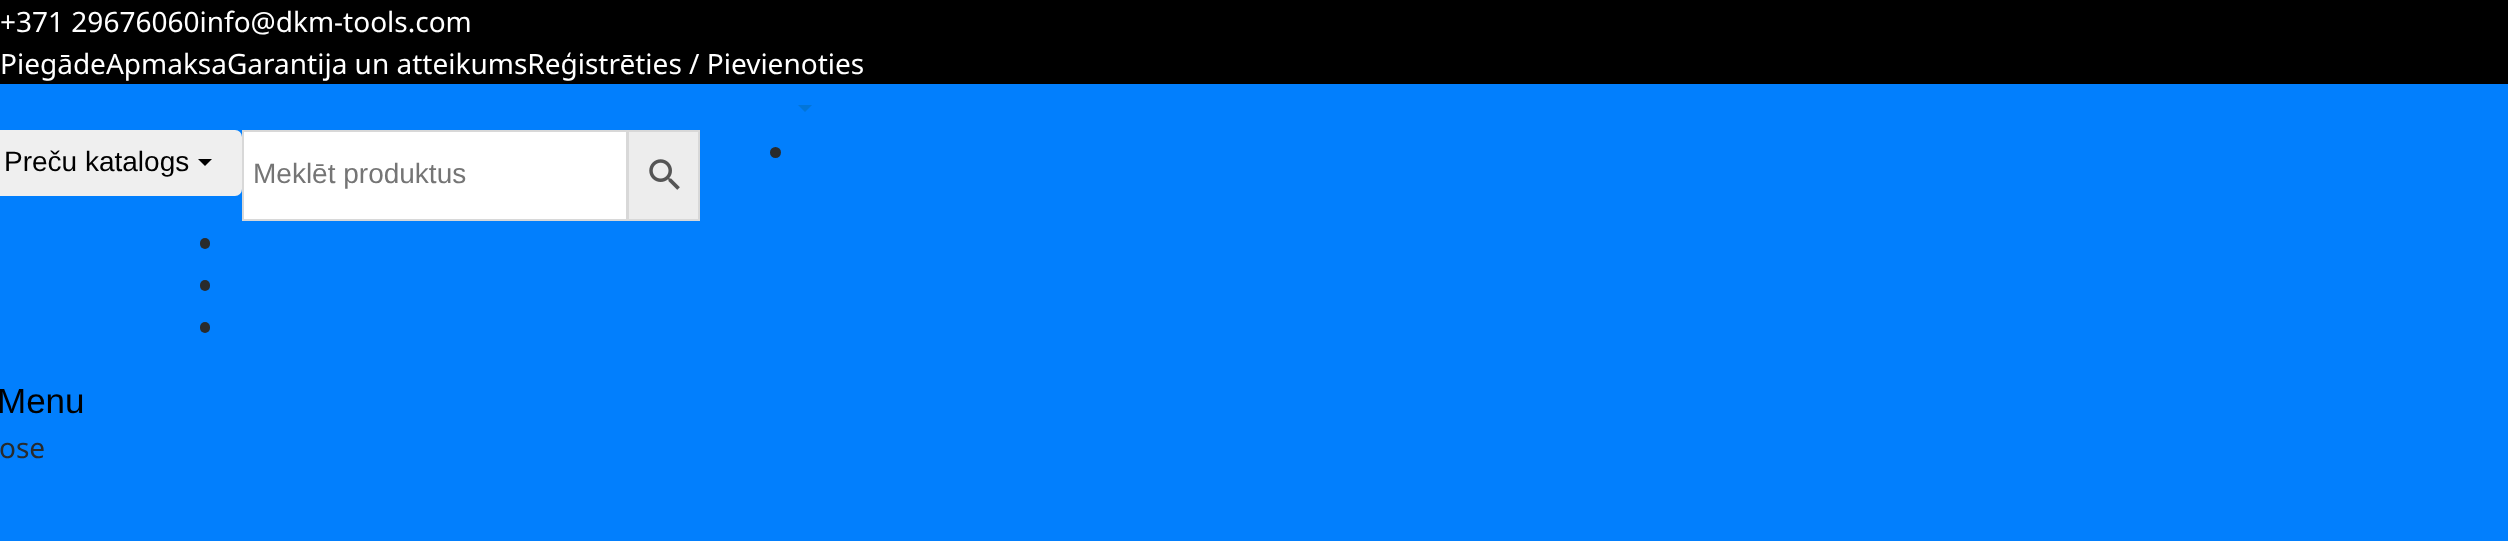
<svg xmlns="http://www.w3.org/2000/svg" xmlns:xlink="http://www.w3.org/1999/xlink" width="2508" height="541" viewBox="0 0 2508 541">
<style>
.cls-1{font:28px Noto Sans;fill:#ffffff}
.cls-2{font:28px Liberation Sans;fill:#000000}
.cls-3{font:28px Liberation Sans;fill:#757575}
.cls-4{font:35px Liberation Sans;fill:#000000}
.cls-5{font:28px Noto Sans;fill:#292b2c}
</style>
<rect width="100%" height="100%" fill="#000000"/>
<rect fill="#027ffd" x="0" y="84" width="2508" height="457"/>
<path fill="#0275d8" d="M798 105H812L805 112Z"/>
<rect fill="#efefef" x="-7" y="130" width="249" height="66" rx="7"/>
<path fill="#000000" d="M198 159H212L205 166Z"/>
<rect fill="#ededed" stroke="#d8d8d8" stroke-width="2" x="628" y="131" width="71" height="89"/>
<rect fill="#ffffff" stroke="#d8d8d8" stroke-width="2" x="243" y="131" width="384" height="89"/>
<image xlink:href="image0.png" x="649" y="159" width="31" height="31"/>
<circle fill="#292b2c" cx="775.5" cy="152.5" r="5.5"/>
<rect fill="#292b2c" x="200" y="238" width="10" height="11" rx="5"/>
<rect fill="#292b2c" x="200" y="280" width="10" height="11" rx="5"/>
<rect fill="#292b2c" x="200" y="322" width="10" height="11" rx="5"/>
<text class="cls-1"><tspan x="0" y="32">+371 29676060info@dkm-tools.com</tspan><tspan x="0" y="74">PiegādeApmaksaGarantija un atteikumsReģistrēties / Pievienoties</tspan></text>
<text class="cls-2" x="4" y="171">Preču katalogs</text>
<text class="cls-3" x="253" y="183">Meklēt produktus</text>
<text class="cls-4" x="-3" y="413">Menu</text>
<text class="cls-5" x="-1" y="458">ose</text>
</svg>
